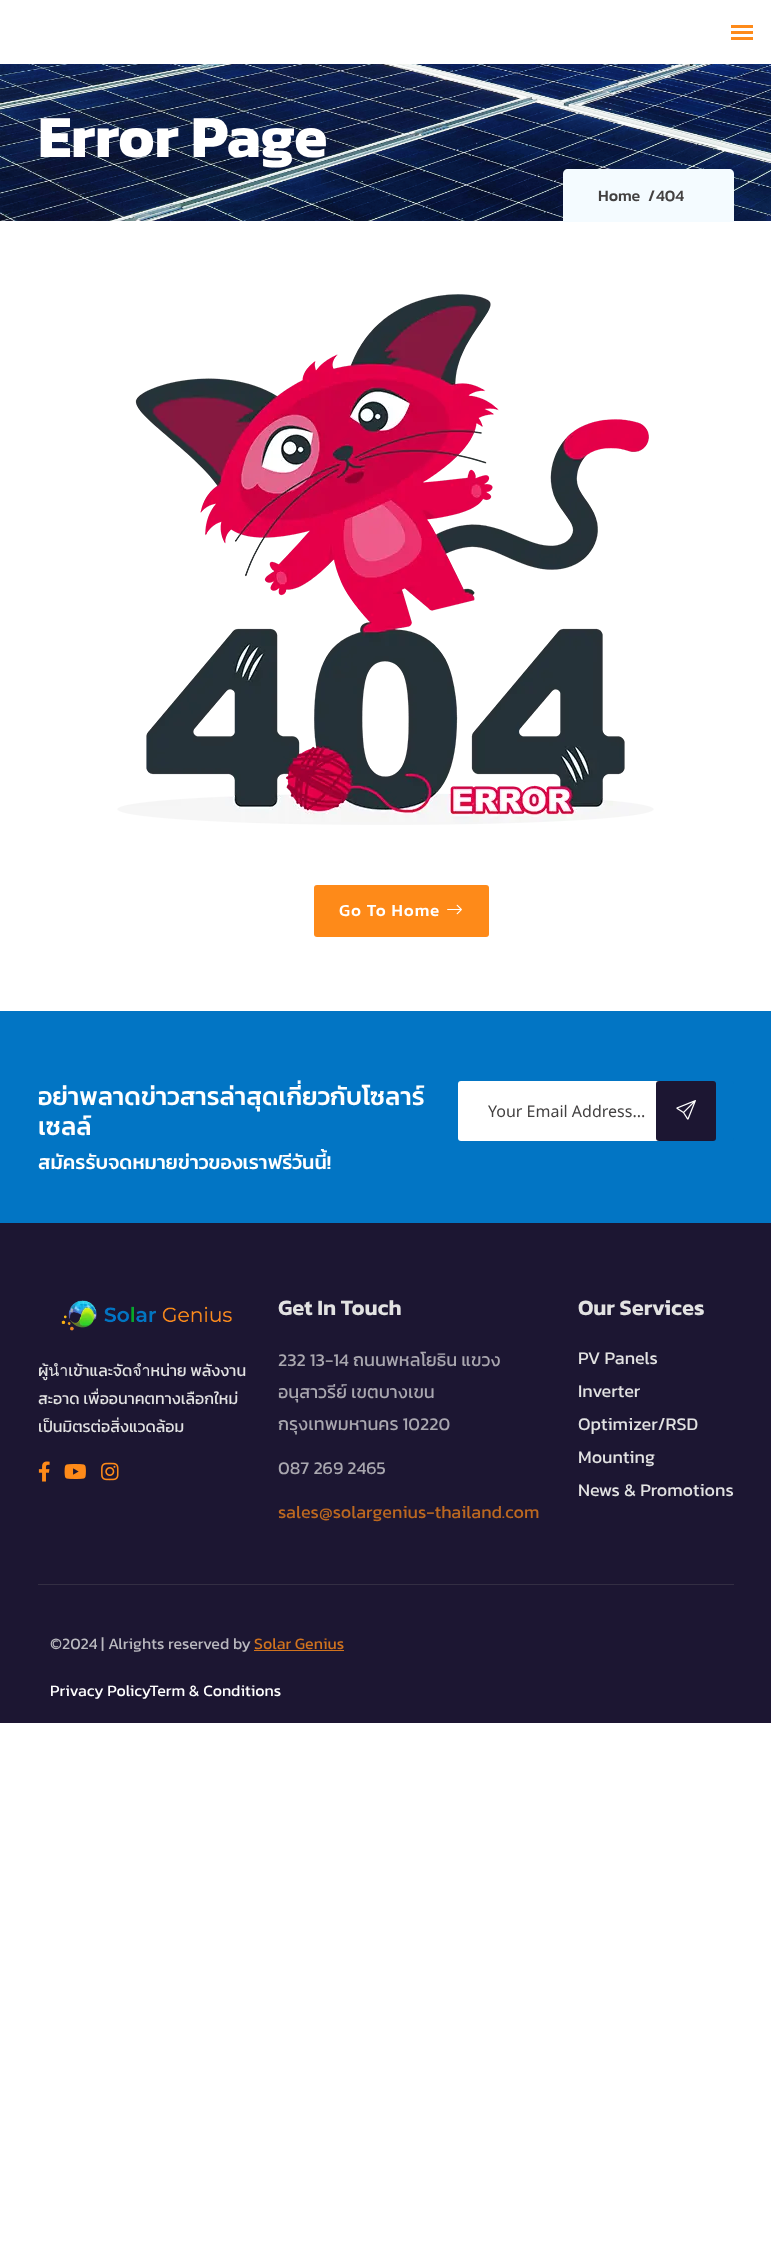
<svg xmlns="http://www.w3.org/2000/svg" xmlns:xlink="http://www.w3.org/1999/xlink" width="771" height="2250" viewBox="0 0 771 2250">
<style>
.cls-1{font:bold 60px Kanit;fill:#ffffff}
.cls-2{font:500 16px Kanit;fill:#434141}
.cls-3{font:500 17px Kanit;letter-spacing:1px;fill:#ffffff}
.cls-4{font:500 25.4px Kanit;fill:#ffffff}
.cls-5{font:500 20px Kanit;fill:#ffffff}
.cls-6{font:16px Noto Sans;fill:#434141}
.cls-7{font:16px Kanit;fill:#e2e2e2}
.cls-8{font:600 22px Kanit;fill:#e2e2e2}
.cls-9{font:18px Kanit;fill:#a9a7af}
.cls-10{font:18px Kanit;fill:#bc6820}
.cls-11{font:18px Kanit;fill:#e2e2e2}
.cls-12{font:16px Kanit;fill:#bab9bf}
.cls-13{font:16px Kanit;fill:#d1731e}
.cls-14{font:16px Kanit;fill:#ffffff}
</style>
<rect width="100%" height="100%" fill="#ffffff"/>
<rect fill="#fe8a19" x="731" y="25" width="22" height="3"/>
<rect fill="#fe8a19" x="731" y="31" width="22" height="3"/>
<rect fill="#fe8a19" x="731" y="37" width="22" height="3"/>
<image xlink:href="image0.png" x="0" y="64" width="771" height="157"/>
<path fill="#f4fbff" d="M568 169H729C732 169 734 171 734 174V222H563V174C563 171 565 169 568 169Z"/>
<image xlink:href="image1.png" x="117" y="294" width="537" height="531"/>
<rect fill="#fe8a19" x="314" y="885" width="175" height="52" rx="3"/>
<image xlink:href="image2.png" x="447" y="904" width="15" height="11"/>
<rect fill="#0275c4" x="0" y="1011" width="771" height="212"/>
<rect fill="#ffffff" x="458" y="1081" width="242" height="60" rx="3"/>
<path fill="#0275c4" d="M674 1081H731C732.5 1081 734 1082.5 734 1084V1138C734 1139.5 732.5 1141 731 1141H674Z"/>
<rect fill="#1c1632" x="656" y="1081" width="60" height="60" rx="3"/>
<image xlink:href="image3.png" x="676" y="1100" width="20" height="20"/>
<rect fill="#1c1632" x="0" y="1223" width="771" height="500"/>
<image xlink:href="image4.png" x="61" y="1300" width="171" height="31"/>
<image xlink:href="image5.png" x="38" y="1461" width="12" height="21"/>
<image xlink:href="image6.png" x="64" y="1464" width="22" height="15"/>
<image xlink:href="image7.png" x="101" y="1462" width="18" height="19"/>
<rect fill="#332e43" x="38" y="1584" width="696" height="1"/>
<rect fill="#d1731e" x="254" y="1650" width="90" height="1"/>
<text class="cls-1" x="38" y="157">Error Page</text>
<text class="cls-2" x="598" y="201">Home</text>
<text class="cls-2" x="648" y="201">/</text>
<text class="cls-2" x="656" y="201">404</text>
<text class="cls-3" x="339" y="916">Go To Home</text>
<text class="cls-4"><tspan x="38" y="1105">อย่าพลาดข่าวสารล่าสุดเกี่ยวกับโซลาร์</tspan><tspan x="38" y="1135">เซลล์</tspan></text>
<text class="cls-5" x="38" y="1169">สมัครรับจดหมายข่าวของเราฟรีวันนี้!</text>
<text class="cls-6" x="488" y="1117">Your Email Address...</text>
<text class="cls-7"><tspan x="38" y="1376">ผู้นำเข้าและจัดจำหน่าย พลังงาน</tspan><tspan x="38" y="1404">สะอาด เพื่ออนาคตทางเลือกใหม่</tspan><tspan x="38" y="1432">เป็นมิตรต่อสิ่งแวดล้อม</tspan></text>
<text class="cls-8" x="278" y="1315">Get In Touch</text>
<text class="cls-9"><tspan x="278" y="1366">232 13-14 ถนนพหลโยธิน แขวง</tspan><tspan x="278" y="1398">อนุสาวรีย์ เขตบางเขน</tspan><tspan x="278" y="1430">กรุงเทพมหานคร 10220</tspan></text>
<text class="cls-9" x="278" y="1474">087 269 2465</text>
<text class="cls-10" x="278" y="1518">sales@solargenius-thailand.com</text>
<text class="cls-8" x="578" y="1315">Our Services</text>
<text class="cls-11"><tspan x="578" y="1364">PV Panels</tspan><tspan x="578" y="1397">Inverter</tspan><tspan x="578" y="1430">Optimizer/RSD</tspan><tspan x="578" y="1463">Mounting</tspan><tspan x="578" y="1496">News &amp; Promotions</tspan></text>
<text class="cls-12" x="50" y="1649">©2024 | Alrights reserved by</text>
<text class="cls-13" x="254" y="1649">Solar Genius</text>
<text class="cls-14" x="50" y="1696">Privacy PolicyTerm &amp; Conditions</text>
</svg>
